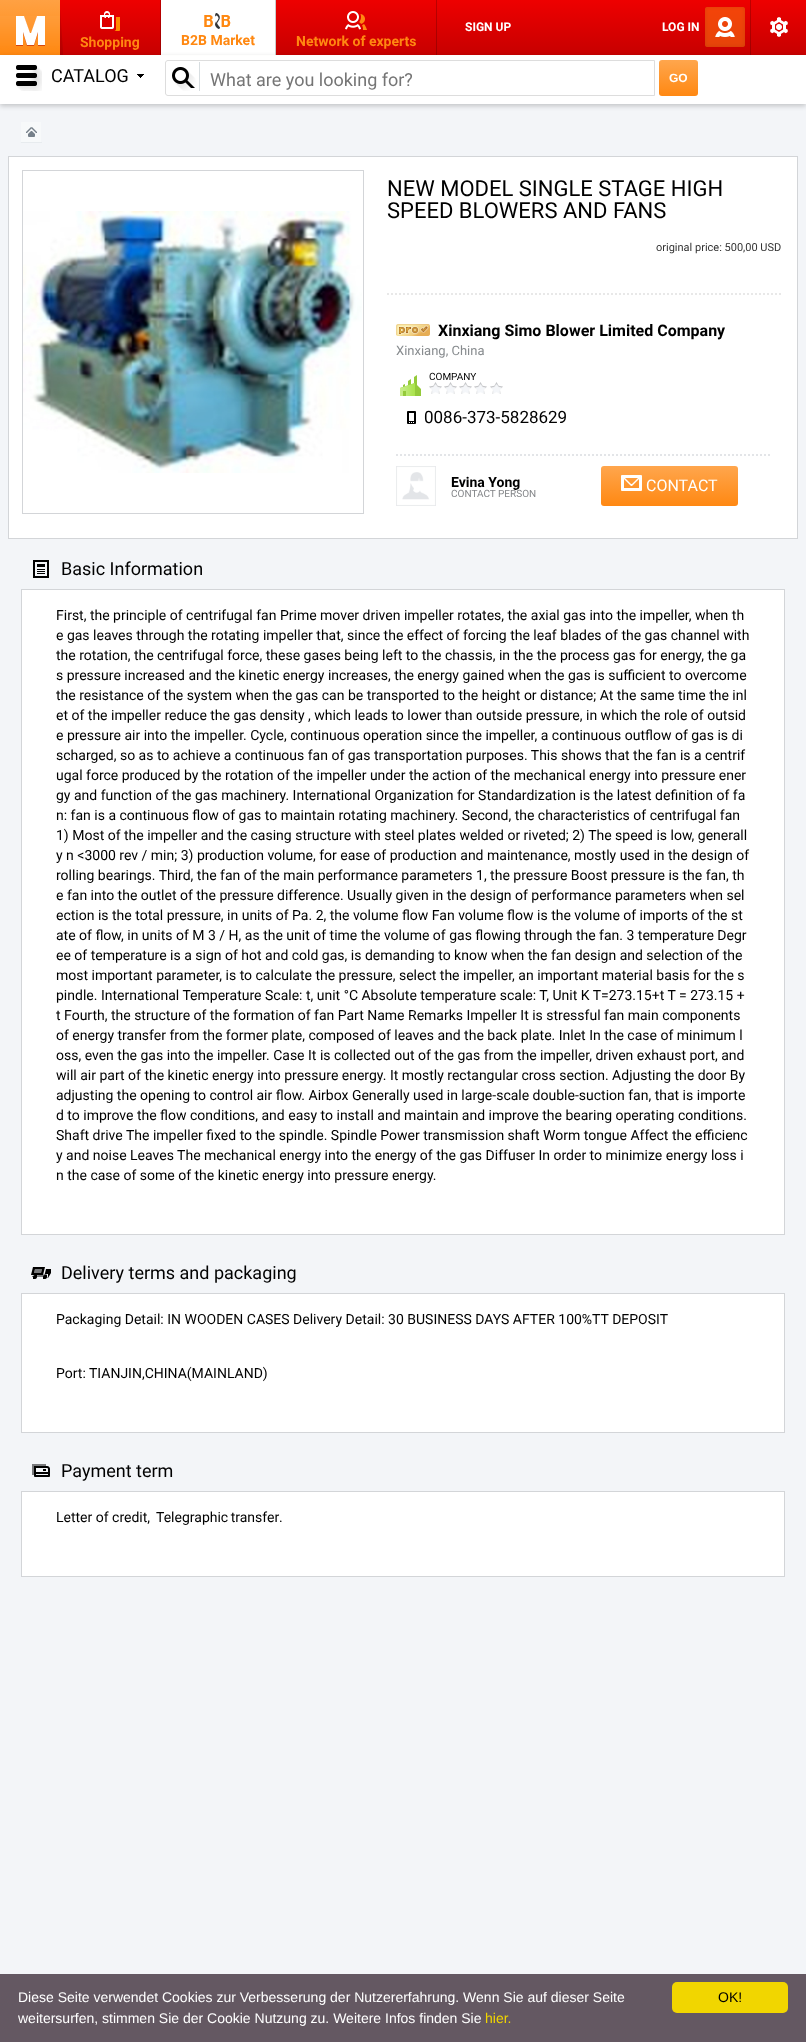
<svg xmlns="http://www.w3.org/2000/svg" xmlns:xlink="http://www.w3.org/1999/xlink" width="806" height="2042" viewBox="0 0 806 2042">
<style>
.cls-1{font:bold 12px Roboto;fill:#ffffff}
.cls-2{font:bold 14px Roboto;fill:#ff8811}
.cls-3{font:18px Roboto;fill:#000000}
.cls-4{font:18px Roboto;fill:#757575}
.cls-5{font:bold 12px Liberation Sans;fill:#ffffff}
.cls-6{font:22px Roboto;fill:#000000}
.cls-7{font:11px Roboto;fill:#333333}
.cls-8{font:bold 16px Roboto;fill:#000000}
.cls-9{font:13px Roboto;fill:#888c8f}
.cls-10{font:10px Roboto;fill:#000000}
.cls-11{font:17px Roboto;fill:#000000}
.cls-12{font:bold 14px Roboto;fill:#000000}
.cls-13{font:10px Roboto;fill:#838588}
.cls-14{font:16px Roboto;fill:#ffffff}
.cls-15{font:14px Roboto;fill:#000000}
.cls-16{font:14px Liberation Sans;fill:#ffffff}
.cls-17{font:14px Liberation Sans;fill:#f1d600}
.cls-18{font:14px Liberation Sans;fill:#000000}
</style>
<defs>
<linearGradient id="g1" gradientUnits="userSpaceOnUse" x1="403" y1="0" x2="403" y2="55"><stop offset="0" stop-color="#ee0000"/><stop offset="1" stop-color="#c70000"/></linearGradient>
<linearGradient id="g2" gradientUnits="userSpaceOnUse" x1="403" y1="0" x2="403" y2="55"><stop offset="0" stop-color="#be0000"/><stop offset="1" stop-color="#9f0000"/></linearGradient>
<linearGradient id="g3" gradientUnits="userSpaceOnUse" x1="30" y1="0" x2="30" y2="55"><stop offset="0" stop-color="#ffa143"/><stop offset="1" stop-color="#ff8811"/></linearGradient>
<linearGradient id="g4" gradientUnits="userSpaceOnUse" x1="679" y1="60" x2="679" y2="96"><stop offset="0" stop-color="#ffa64d"/><stop offset="1" stop-color="#ff8812"/></linearGradient>
<linearGradient id="g5" gradientUnits="userSpaceOnUse" x1="670" y1="466" x2="670" y2="506"><stop offset="0" stop-color="#ffa64d"/><stop offset="1" stop-color="#ff8812"/></linearGradient>
</defs>
<rect width="100%" height="100%" fill="#f3f5f8"/>
<rect fill="url(#g1)" x="60" y="0" width="746" height="55"/>
<rect fill="url(#g2)" x="436" y="0" width="1" height="55"/>
<rect fill="url(#g2)" x="160" y="0" width="1" height="55"/>
<rect fill="url(#g3)" x="0" y="0" width="60" height="55"/>
<image xlink:href="image0.png" x="0" y="16" width="60" height="30"/>
<image xlink:href="image1.png" x="60" y="10" width="3" height="45"/>
<image xlink:href="image2.png" x="705" y="7" width="40" height="40"/>
<rect fill="#ffffff" x="161" y="0" width="114" height="55"/>
<rect fill="#cccccc" x="275" y="0" width="1" height="55"/>
<rect fill="#000000" fill-opacity="0.2" filter="blur(2.5px)" x="0" y="57" width="806" height="49"/>
<rect fill="#000000" fill-opacity="0.2" x="750" y="0" width="1" height="55"/>
<image xlink:href="image3.png" x="770" y="17" width="18" height="20"/>
<image xlink:href="image4.png" x="100" y="11" width="20" height="20"/>
<image xlink:href="image5.png" x="204" y="13" width="27" height="16"/>
<image xlink:href="image6.png" x="345" y="11" width="22" height="19"/>
<rect fill="#ffffff" x="0" y="56" width="806" height="48"/>
<rect fill="#fefefd" x="0" y="55" width="806" height="1"/>
<image xlink:href="image7.png" x="16" y="65" width="26" height="26"/>
<image xlink:href="image8.png" x="137" y="74" width="7" height="4"/>
<path fill="none" stroke="#dddddd" d="M168 60.5H654.5V95.5H168C166.5 95.5 165.5 94.5 165.5 93V63C165.5 61.5 166.5 60.5 168 60.5Z"/>
<image xlink:href="image9.png" x="172" y="62" width="28" height="29"/>
<rect fill="url(#g4)" x="659" y="60" width="39" height="36" rx="3"/>
<rect fill="#f7f9fa" x="21" y="122" width="20" height="20"/>
<rect fill="#e7ebee" x="20" y="142" width="22" height="1"/>
<rect fill="#f1f4f6" x="20" y="142" width="1" height="1"/>
<image xlink:href="image10.png" x="26" y="127" width="11" height="10"/>
<rect fill="#ffffff" stroke="#d3d5d8" x="8.5" y="156.5" width="789" height="382"/>
<rect fill="none" stroke="#d3d5d8" x="22.5" y="170.5" width="341" height="343"/>
<image xlink:href="image11.png" x="23" y="211" width="339" height="262"/>
<path fill="none" stroke="#e8e8e8" stroke-width="2" stroke-dasharray="2 2" d="M387 294H781"/>
<image xlink:href="image12.png" x="396" y="324" width="34" height="12"/>
<image xlink:href="image13.png" x="400" y="375" width="21" height="21"/>
<image xlink:href="image14.png" x="429" y="382" width="74" height="12"/>
<image xlink:href="image15.png" x="407" y="411" width="9" height="13"/>
<path fill="none" stroke="#e3e5e8" stroke-width="2" stroke-dasharray="2 2" d="M396 455H772"/>
<image xlink:href="image16.png" x="396" y="466" width="40" height="40"/>
<rect fill="url(#g5)" x="601" y="466" width="137" height="40" rx="3"/>
<image xlink:href="image17.png" x="621" y="475" width="21" height="16"/>
<image xlink:href="image18.png" x="33" y="560" width="16" height="18"/>
<rect fill="#ffffff" stroke="#d3d5d8" x="21.5" y="589.5" width="763" height="645"/>
<image xlink:href="image19.png" x="31" y="1267" width="20" height="12"/>
<rect fill="#ffffff" stroke="#d3d5d8" x="21.5" y="1293.5" width="763" height="139"/>
<image xlink:href="image20.png" x="32" y="1464" width="18" height="13"/>
<rect fill="#ffffff" stroke="#d3d5d8" x="21.5" y="1491.5" width="763" height="85"/>
<rect fill="#645862" x="0" y="1974" width="806" height="68"/>
<rect fill="#f1d600" x="672" y="1982" width="116" height="31" rx="5"/>
<text class="cls-1" x="465" y="31">SIGN UP</text>
<text class="cls-1" x="662" y="31">LOG IN</text>
<text class="cls-2" x="80" y="47">Shopping</text>
<text class="cls-2" x="181" y="45">B2B Market</text>
<text class="cls-2" x="296" y="46">Network of experts</text>
<text class="cls-3" x="51" y="82">CATALOG</text>
<text class="cls-4" x="210" y="86">What are you looking for?</text>
<text class="cls-5" x="669" y="82">GO</text>
<text class="cls-6"><tspan x="387" y="196">NEW MODEL SINGLE STAGE HIGH</tspan><tspan x="387" y="218">SPEED BLOWERS AND FANS</tspan></text>
<text class="cls-7" x="656" y="251">original price: 500,00 USD</text>
<text class="cls-8" x="438" y="336">Xinxiang Simo Blower Limited Company</text>
<text class="cls-9" x="396" y="355">Xinxiang, China</text>
<text class="cls-10" x="429" y="380">COMPANY</text>
<text class="cls-11" x="424" y="423">0086-373-5828629</text>
<text class="cls-12" x="451" y="487">Evina Yong</text>
<text class="cls-13" x="451" y="497">CONTACT PERSON</text>
<text class="cls-14" x="646" y="491">CONTACT</text>
<text class="cls-3" x="61" y="575">Basic Information</text>
<text class="cls-15"><tspan x="56" y="620">First, the principle of centrifugal fan Prime mover driven impeller rotates, the axial gas into the impeller, when th</tspan><tspan x="56" y="640">e gas leaves through the rotating impeller that, since the effect of forcing the leaf blades of the gas channel with</tspan><tspan x="56" y="660">the rotation, the centrifugal force, these gases being left to the chassis, in the the process gas for energy, the ga</tspan><tspan x="56" y="680">s pressure increased and the kinetic energy increases, the energy gained when the gas is sufficient to overcome</tspan><tspan x="56" y="700">the resistance of the system when the gas can be transported to the height or distance; At the same time the inl</tspan><tspan x="56" y="720">et of the impeller reduce the gas density , which leads to lower than outside pressure, in which the role of outsid</tspan><tspan x="56" y="740">e pressure air into the impeller. Cycle, continuous operation since the impeller, a continuous outflow of gas is di</tspan><tspan x="56" y="760">scharged, so as to achieve a continuous fan of gas transportation purposes. This shows that the fan is a centrif</tspan><tspan x="56" y="780">ugal force produced by the rotation of the impeller under the action of the mechanical energy into pressure ener</tspan><tspan x="56" y="800">gy and function of the gas machinery. International Organization for Standardization is the latest definition of fa</tspan><tspan x="56" y="820">n: fan is a continuous flow of gas to maintain rotating machinery. Second, the characteristics of centrifugal fan</tspan><tspan x="56" y="840">1) Most of the impeller and the casing structure with steel plates welded or riveted; 2) The speed is low, generall</tspan><tspan x="56" y="860">y n &lt;3000 rev / min; 3) production volume, for ease of production and maintenance, mostly used in the design of</tspan><tspan x="56" y="880">rolling bearings. Third, the fan of the main performance parameters 1, the pressure Boost pressure is the fan, th</tspan><tspan x="56" y="900">e fan into the outlet of the pressure difference. Usually given in the design of performance parameters when sel</tspan><tspan x="56" y="920">ection is the total pressure, in units of Pa. 2, the volume flow Fan volume flow is the volume of imports of the st</tspan><tspan x="56" y="940">ate of flow, in units of M 3 / H, as the unit of time the volume of gas flowing through the fan. 3 temperature Degr</tspan><tspan x="56" y="960">ee of temperature is a sign of hot and cold gas, is demanding to know when the fan design and selection of the</tspan><tspan x="56" y="980">most important parameter, is to calculate the pressure, select the impeller, an important material basis for the s</tspan><tspan x="56" y="1000">pindle. International Temperature Scale: t, unit °C Absolute temperature scale: T, Unit K T=273.15+t T = 273.15 +</tspan><tspan x="56" y="1020">t Fourth, the structure of the formation of fan Part Name Remarks Impeller It is stressful fan main components</tspan><tspan x="56" y="1040">of energy transfer from the former plate, composed of leaves and the back plate. Inlet In the case of minimum l</tspan><tspan x="56" y="1060">oss, even the gas into the impeller. Case It is collected out of the gas from the impeller, driven exhaust port, and</tspan><tspan x="56" y="1080">will air part of the kinetic energy into pressure energy. It mostly rectangular cross section. Adjusting the door By</tspan><tspan x="56" y="1100">adjusting the opening to control air flow. Airbox Generally used in large-scale double-suction fan, that is importe</tspan><tspan x="56" y="1120">d to improve the flow conditions, and easy to install and maintain and improve the bearing operating conditions.</tspan><tspan x="56" y="1140">Shaft drive The impeller fixed to the spindle. Spindle Power transmission shaft Worm tongue Affect the efficienc</tspan><tspan x="56" y="1160">y and noise Leaves The mechanical energy into the energy of the gas Diffuser In order to minimize energy loss i</tspan><tspan x="56" y="1180">n the case of some of the kinetic energy into pressure energy.</tspan></text>
<text class="cls-3" x="61" y="1279">Delivery terms and packaging</text>
<text class="cls-15" x="56" y="1324">Packaging Detail: IN WOODEN CASES Delivery Detail: 30 BUSINESS DAYS AFTER 100%TT DEPOSIT</text>
<text class="cls-15" x="56" y="1378">Port: TIANJIN,CHINA(MAINLAND)</text>
<text class="cls-3" x="61" y="1477">Payment term</text>
<text class="cls-15" x="56" y="1522">Letter of credit,</text>
<text class="cls-15" x="156" y="1522" word-spacing="-1">Telegraphic transfer</text>
<text class="cls-15" x="279" y="1522">.</text>
<text class="cls-16"><tspan x="18" y="2002">Diese Seite verwendet Cookies zur Verbesserung der Nutzererfahrung. Wenn Sie auf dieser Seite</tspan><tspan x="18" y="2023">weitersurfen, stimmen Sie der Cookie Nutzung zu. Weitere Infos finden Sie</tspan></text>
<text class="cls-17" x="485" y="2023">hier.</text>
<text class="cls-18" x="718" y="2002">OK!</text>
</svg>
